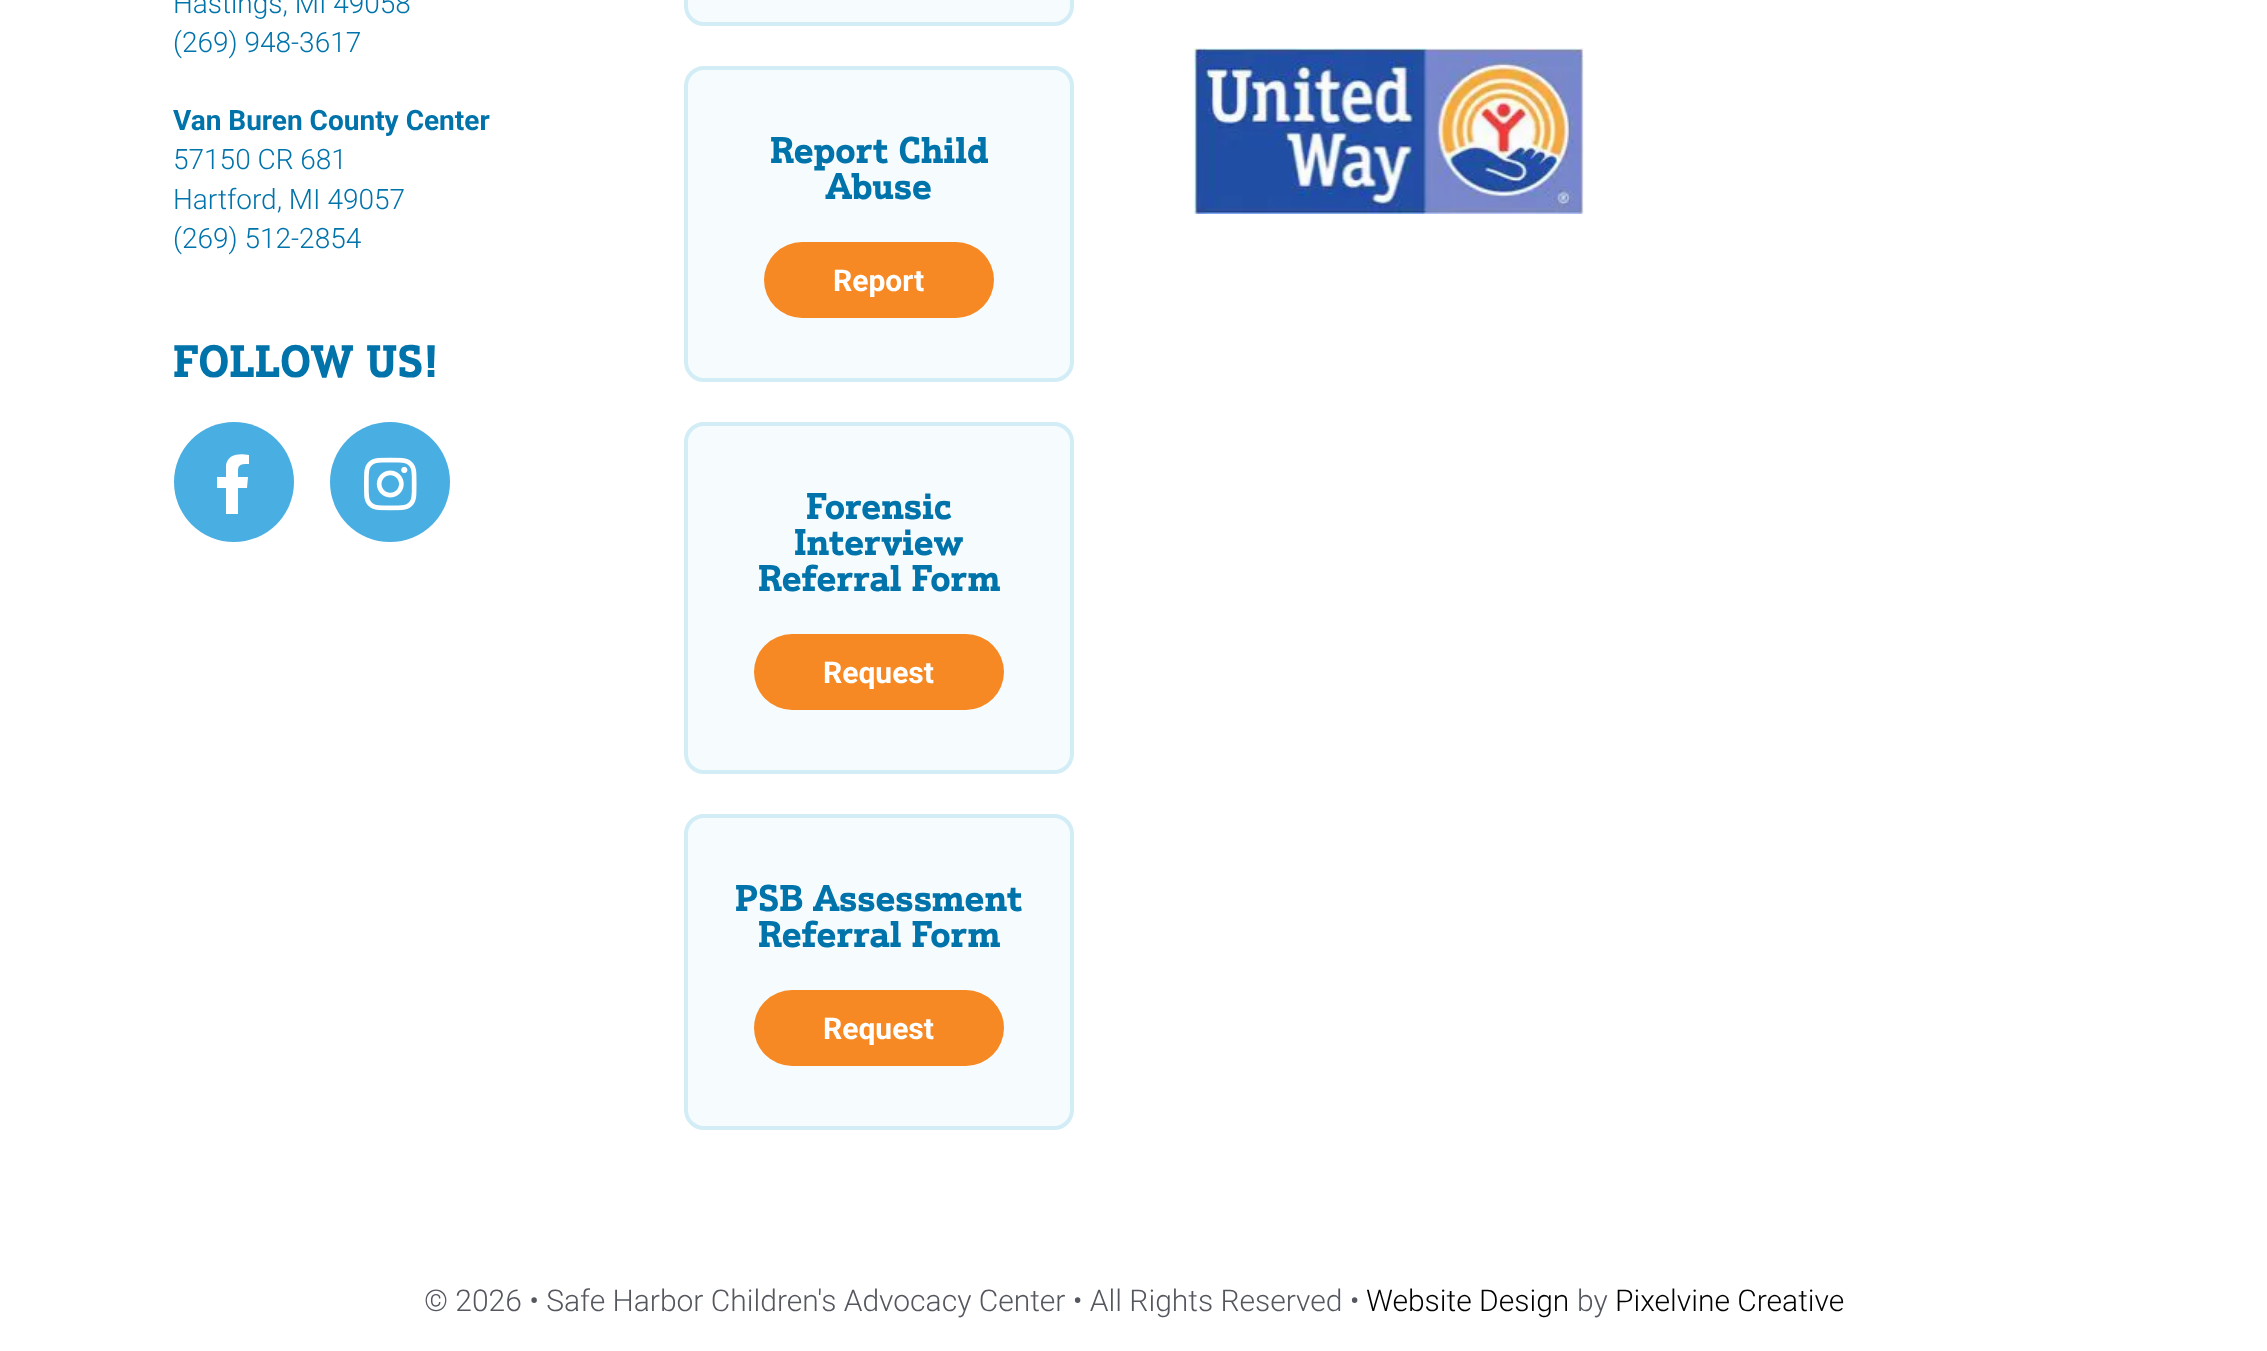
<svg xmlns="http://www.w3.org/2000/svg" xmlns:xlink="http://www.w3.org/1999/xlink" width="2267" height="1351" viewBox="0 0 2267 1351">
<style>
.cls-1{font:300 28px Roboto;fill:#0073ab}
.cls-2{font:bold 28px Roboto;fill:#0073ab}
.cls-3{font:bold 44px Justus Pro;fill:#0073ab}
.cls-4{font:bold 36px Justus Pro;fill:#0073ab}
.cls-5{font:bold 30px Roboto;fill:#ffffff}
.cls-6{font:300 30px Roboto;fill:#54575e}
.cls-7{font:300 30px Roboto;fill:#000000}
</style>
<rect width="100%" height="100%" fill="#ffffff"/>
<circle fill="#49aee2" cx="234" cy="482" r="60"/>
<path fill="#ffffff" d="M247 488L248 477H238C238 466 237 464 249 464V455C239 453 228 454 226 465V477H217V488H226V514H238V488Z"/>
<circle fill="#49aee2" cx="390" cy="482" r="60"/>
<image xlink:href="image0.png" x="364" y="457" width="53" height="54"/>
<rect fill="#f6fbfd" stroke="#d2edf6" stroke-width="4" x="686" y="-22" width="386" height="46" rx="18"/>
<rect fill="#f6fcfe" stroke="#d2edf6" stroke-width="4" x="686" y="68" width="386" height="312" rx="18"/>
<rect fill="#f68923" x="764" y="242" width="230" height="76" rx="38"/>
<rect fill="#f6fcfe" stroke="#d2edf6" stroke-width="4" x="686" y="424" width="386" height="348" rx="18"/>
<rect fill="#f68923" x="754" y="634" width="250" height="76" rx="38"/>
<rect fill="#f6fcfe" stroke="#d2edf6" stroke-width="4" x="686" y="816" width="386" height="312" rx="18"/>
<rect fill="#f68923" x="754" y="990" width="250" height="76" rx="38"/>
<image xlink:href="image1.png" x="1194" y="48" width="390" height="166"/>
<text class="cls-1"><tspan x="173" y="13">Hastings, MI 49058</tspan><tspan x="173" y="52">(269) 948-3617</tspan></text>
<text class="cls-2" x="173" y="130">Van Buren County Center</text>
<text class="cls-1"><tspan x="173" y="169">57150 CR 681</tspan><tspan x="173" y="209">Hartford, MI 49057</tspan><tspan x="173" y="248">(269) 512-2854</tspan></text>
<text class="cls-3" x="173" y="377">FOLLOW US!</text>
<text class="cls-4" x="770" y="163">Report Child</text>
<text class="cls-4" x="826" y="199">Abuse</text>
<text class="cls-5" x="833" y="291">Report</text>
<text class="cls-4" x="806" y="519">Forensic</text>
<text class="cls-4" x="794" y="555">Interview</text>
<text class="cls-4" x="758" y="591">Referral Form</text>
<text class="cls-5" x="823" y="683">Request</text>
<text class="cls-4" x="735" y="911">PSB Assessment</text>
<text class="cls-4" x="758" y="947">Referral Form</text>
<text class="cls-5" x="823" y="1039">Request</text>
<text class="cls-6" x="424" y="1311">© 2026 • Safe Harbor Children's Advocacy Center • All Rights Reserved •</text>
<text class="cls-7" x="1366" y="1311">Website Design</text>
<text class="cls-6" x="1577" y="1311">by</text>
<text class="cls-7" x="1615" y="1311">Pixelvine Creative</text>
</svg>
